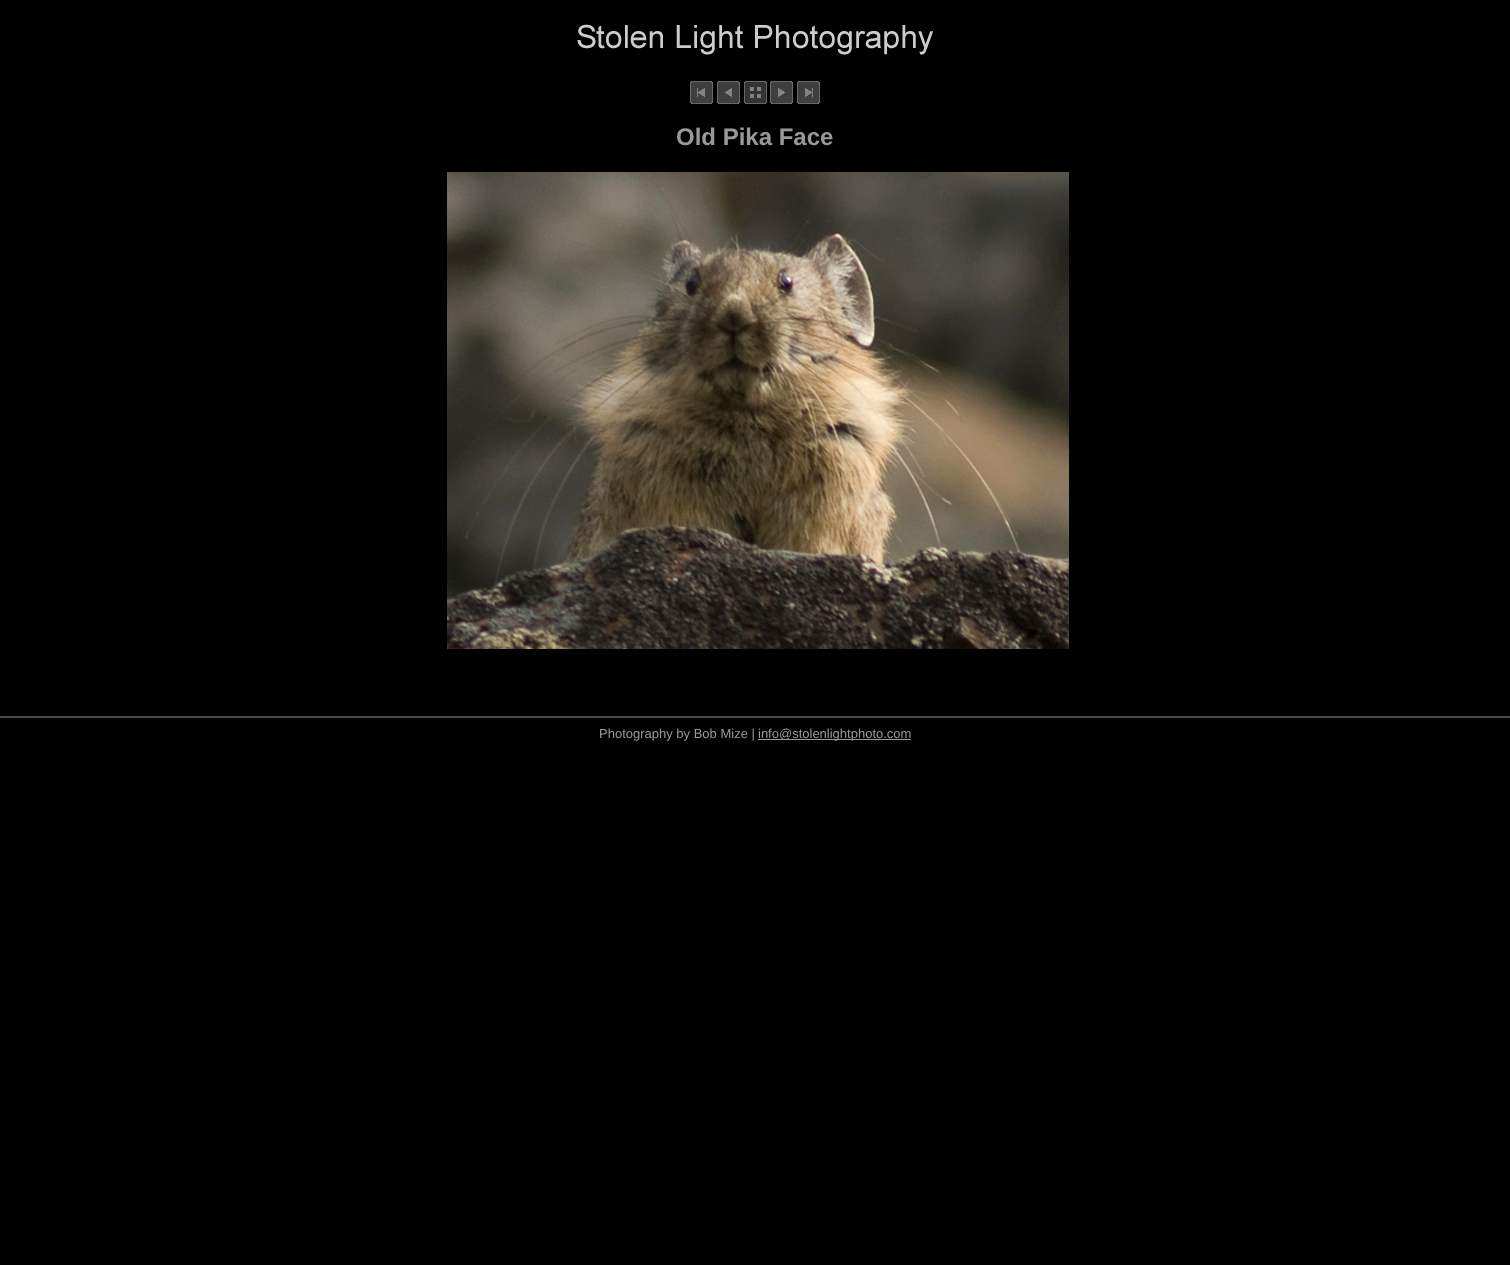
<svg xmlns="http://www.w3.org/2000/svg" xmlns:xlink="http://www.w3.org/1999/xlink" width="1510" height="1265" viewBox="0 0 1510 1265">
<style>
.cls-1{font:bold 24px Liberation Sans;fill:#999999}
.cls-2{font:13px Liberation Sans;fill:#999999}
</style>
<rect width="100%" height="100%" fill="#000000"/>
<image xlink:href="image0.png" x="577" y="24" width="356" height="31"/>
<image xlink:href="image1.png" x="690" y="81" width="23" height="23"/>
<image xlink:href="image2.png" x="717" y="81" width="23" height="23"/>
<image xlink:href="image3.png" x="744" y="81" width="23" height="23"/>
<image xlink:href="image4.png" x="770" y="81" width="23" height="23"/>
<image xlink:href="image5.png" x="797" y="81" width="23" height="23"/>
<image xlink:href="image6.png" x="447" y="172" width="622" height="477"/>
<rect fill="#484848" x="0" y="716" width="1510" height="2"/>
<rect fill="#999999" x="758" y="739" width="153" height="1"/>
<text class="cls-1" x="676" y="145">Old Pika Face</text>
<text class="cls-2" x="599" y="738">Photography by Bob Mize |</text>
<text class="cls-2" x="758" y="738">info@stolenlightphoto.com</text>
</svg>
